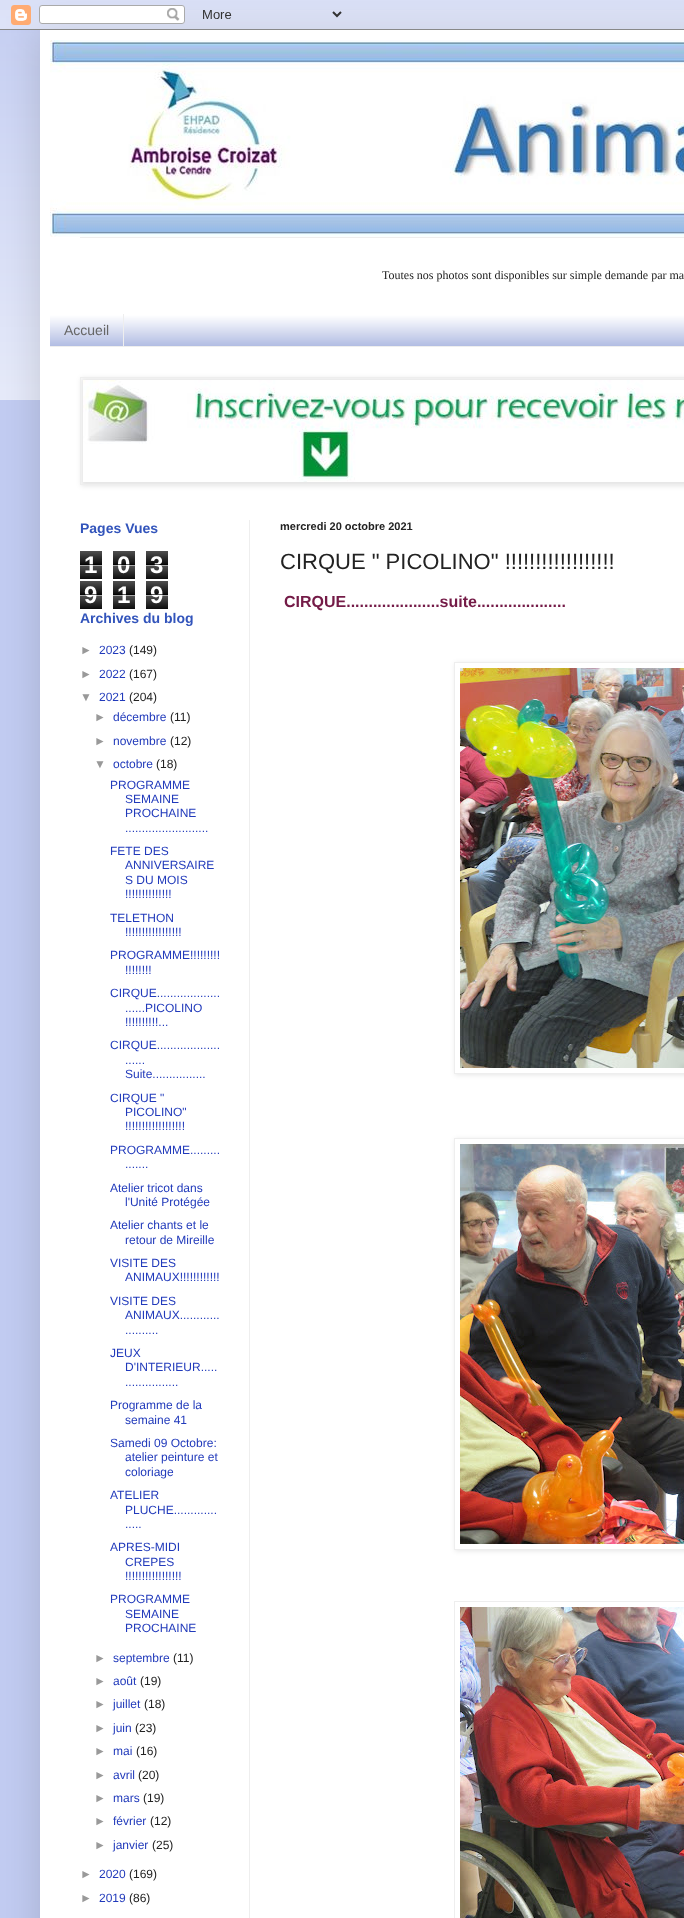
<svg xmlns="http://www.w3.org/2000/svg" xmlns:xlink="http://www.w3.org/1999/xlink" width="684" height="1918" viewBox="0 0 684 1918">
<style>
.cls-1{font:12px Liberation Serif;fill:#222222}
.cls-2{font:14px Liberation Sans;fill:#666666}
.cls-3{font:bold 14px Liberation Sans;fill:#3254bb}
.cls-4{font:bold 24px Liberation Sans;fill:#ffffff}
.cls-5{font:12px Liberation Sans;fill:#999999}
.cls-6{font:12px Liberation Sans;fill:#213abb}
.cls-7{font:12px Liberation Sans;fill:#222222}
.cls-8{font:bold 11px Liberation Sans;fill:#222222}
.cls-9{font:22px Liberation Sans;fill:#222222}
.cls-10{font:bold 16px Liberation Sans;fill:#741b47}
</style>
<defs>
<clipPath id="clip1"><path d="M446 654H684V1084H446ZM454 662H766V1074H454Z" clip-rule="evenodd"/></clipPath>
<clipPath id="clip2"><path d="M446 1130H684V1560H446ZM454 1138H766V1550H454Z" clip-rule="evenodd"/></clipPath>
</defs>
<rect width="100%" height="100%" fill="#c2ccf2"/>
<image xlink:href="image1.png" x="0" y="10" width="684" height="390"/>
<rect fill="#000000" fill-opacity="0.15" filter="blur(20px)" x="40" y="30" width="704" height="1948"/>
<image xlink:href="image0.png" x="0" y="0" width="684" height="30"/>
<rect fill="#ffffff" x="40" y="30" width="644" height="1888"/>
<image xlink:href="image2.png" x="50" y="40" width="634" height="197"/>
<rect fill="#eeeeee" x="80" y="237" width="604" height="1"/>
<rect fill="#a1aedd" x="50" y="315" width="634" height="31"/>
<image xlink:href="image3.png" x="50" y="314" width="634" height="32"/>
<rect fill="#eeeeee" x="50" y="346" width="634" height="1"/>
<rect fill="#eeeeee" x="123" y="314" width="1" height="32"/>
<rect fill="#000000" fill-opacity="0.1" filter="blur(2.5px)" x="81" y="378" width="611" height="108"/>
<rect fill="none" stroke="#eeeeee" x="80.5" y="377.5" width="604" height="107"/>
<image xlink:href="image4.png" x="83" y="380" width="601" height="102"/>
<rect fill="#eeeeee" x="249" y="520" width="1" height="1398"/>
<image xlink:href="image5.png" x="80" y="551" width="22" height="28"/>
<image xlink:href="image5.png" x="113" y="551" width="22" height="28"/>
<image xlink:href="image5.png" x="146" y="551" width="22" height="28"/>
<image xlink:href="image5.png" x="80" y="581" width="22" height="28"/>
<image xlink:href="image5.png" x="113" y="581" width="22" height="28"/>
<image xlink:href="image5.png" x="146" y="581" width="22" height="28"/>
<g clip-path="url(#clip1)">
<rect fill="#000000" fill-opacity="0.1" filter="blur(2.5px)" x="455" y="663" width="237" height="412"/>
</g>
<rect fill="none" stroke="#eeeeee" x="454.5" y="662.5" width="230" height="411"/>
<image xlink:href="image6.png" x="460" y="668" width="224" height="400"/>
<g clip-path="url(#clip2)">
<rect fill="#000000" fill-opacity="0.1" filter="blur(2.5px)" x="455" y="1139" width="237" height="412"/>
</g>
<rect fill="none" stroke="#eeeeee" x="454.5" y="1138.5" width="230" height="411"/>
<image xlink:href="image7.png" x="460" y="1144" width="224" height="400"/>
<rect fill="none" stroke="#eeeeee" x="454.5" y="1601.5" width="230" height="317"/>
<image xlink:href="image8.png" x="460" y="1607" width="224" height="311"/>
<text class="cls-1" x="382" y="279">Toutes nos photos sont disponibles sur simple demande par ma</text>
<text class="cls-2" x="64" y="335">Accueil</text>
<text class="cls-3" x="80" y="533">Pages Vues</text>
<text class="cls-4" x="84" y="573">1</text>
<rect fill="#000000" fill-opacity="0.65" x="80" y="564" width="22" height="1"/>
<rect fill="#ffffff" fill-opacity="0.65" x="80" y="565" width="22" height="1"/>
<text class="cls-4" x="117" y="573">0</text>
<rect fill="#000000" fill-opacity="0.65" x="113" y="564" width="22" height="1"/>
<rect fill="#ffffff" fill-opacity="0.65" x="113" y="565" width="22" height="1"/>
<text class="cls-4" x="150" y="573">3</text>
<rect fill="#000000" fill-opacity="0.65" x="146" y="564" width="22" height="1"/>
<rect fill="#ffffff" fill-opacity="0.65" x="146" y="565" width="22" height="1"/>
<text class="cls-4" x="84" y="603">9</text>
<rect fill="#000000" fill-opacity="0.65" x="80" y="594" width="22" height="1"/>
<rect fill="#ffffff" fill-opacity="0.65" x="80" y="595" width="22" height="1"/>
<text class="cls-4" x="117" y="603">1</text>
<rect fill="#000000" fill-opacity="0.65" x="113" y="594" width="22" height="1"/>
<rect fill="#ffffff" fill-opacity="0.65" x="113" y="595" width="22" height="1"/>
<text class="cls-4" x="150" y="603">9</text>
<rect fill="#000000" fill-opacity="0.65" x="146" y="594" width="22" height="1"/>
<rect fill="#ffffff" fill-opacity="0.65" x="146" y="595" width="22" height="1"/>
<text class="cls-3" x="80" y="623">Archives du blog</text>
<text class="cls-5" x="80" y="654">►</text>
<text class="cls-6" x="99" y="654">2023</text>
<text class="cls-7" x="129" y="654">(149)</text>
<text class="cls-5" x="80" y="678">►</text>
<text class="cls-6" x="99" y="678">2022</text>
<text class="cls-7" x="129" y="678">(167)</text>
<text class="cls-5" x="80" y="701">▼</text>
<text class="cls-6" x="99" y="701">2021</text>
<text class="cls-7" x="129" y="701">(204)</text>
<text class="cls-5" x="94" y="721">►</text>
<text class="cls-6" x="113" y="721">décembre</text>
<text class="cls-7" x="170" y="721">(11)</text>
<text class="cls-5" x="94" y="745">►</text>
<text class="cls-6" x="113" y="745">novembre</text>
<text class="cls-7" x="170" y="745">(12)</text>
<text class="cls-5" x="94" y="768">▼</text>
<text class="cls-6" x="113" y="768">octobre</text>
<text class="cls-7" x="156" y="768">(18)</text>
<text class="cls-6" x="110" y="789">PROGRAMME</text>
<text class="cls-6"><tspan x="125" y="803">SEMAINE</tspan><tspan x="125" y="817">PROCHAINE</tspan><tspan x="125" y="832">.........................</tspan></text>
<text class="cls-6" x="110" y="855">FETE DES</text>
<text class="cls-6"><tspan x="125" y="869">ANNIVERSAIRE</tspan><tspan x="125" y="884">S DU MOIS</tspan><tspan x="125" y="898">!!!!!!!!!!!!!!</tspan></text>
<text class="cls-6" x="110" y="922">TELETHON</text>
<text class="cls-6" x="125" y="936">!!!!!!!!!!!!!!!!!</text>
<text class="cls-6" x="110" y="959">PROGRAMME!!!!!!!!!</text>
<text class="cls-6" x="125" y="974">!!!!!!!!</text>
<text class="cls-6" x="110" y="997">CIRQUE...................</text>
<text class="cls-6"><tspan x="125" y="1012">......PICOLINO</tspan><tspan x="125" y="1026">!!!!!!!!!!...</tspan></text>
<text class="cls-6" x="110" y="1049">CIRQUE...................</text>
<text class="cls-6"><tspan x="125" y="1064">......</tspan><tspan x="125" y="1078">Suite................</tspan></text>
<text class="cls-6" x="110" y="1102">CIRQUE "</text>
<text class="cls-6"><tspan x="125" y="1116">PICOLINO"</tspan><tspan x="125" y="1130">!!!!!!!!!!!!!!!!!!</tspan></text>
<text class="cls-6" x="110" y="1154">PROGRAMME.........</text>
<text class="cls-6" x="125" y="1168">.......</text>
<text class="cls-6" x="110" y="1192">Atelier tricot dans</text>
<text class="cls-6" x="125" y="1206">l'Unité Protégée</text>
<text class="cls-6" x="110" y="1229">Atelier chants et le</text>
<text class="cls-6" x="125" y="1244">retour de Mireille</text>
<text class="cls-6" x="110" y="1267">VISITE DES</text>
<text class="cls-6" x="125" y="1281">ANIMAUX!!!!!!!!!!!!</text>
<text class="cls-6" x="110" y="1305">VISITE DES</text>
<text class="cls-6"><tspan x="125" y="1319">ANIMAUX............</tspan><tspan x="125" y="1334">..........</tspan></text>
<text class="cls-6" x="110" y="1357">JEUX</text>
<text class="cls-6"><tspan x="125" y="1371">D'INTERIEUR.....</tspan><tspan x="125" y="1386">................</tspan></text>
<text class="cls-6" x="110" y="1409">Programme de la</text>
<text class="cls-6" x="125" y="1424">semaine 41</text>
<text class="cls-6" x="110" y="1447">Samedi 09 Octobre:</text>
<text class="cls-6"><tspan x="125" y="1461">atelier peinture et</tspan><tspan x="125" y="1476">coloriage</tspan></text>
<text class="cls-6" x="110" y="1499">ATELIER</text>
<text class="cls-6"><tspan x="125" y="1514">PLUCHE.............</tspan><tspan x="125" y="1528">.....</tspan></text>
<text class="cls-6" x="110" y="1551">APRES-MIDI</text>
<text class="cls-6"><tspan x="125" y="1566">CREPES</tspan><tspan x="125" y="1580">!!!!!!!!!!!!!!!!!</tspan></text>
<text class="cls-6" x="110" y="1603">PROGRAMME</text>
<text class="cls-6"><tspan x="125" y="1618">SEMAINE</tspan><tspan x="125" y="1632">PROCHAINE</tspan></text>
<text class="cls-5" x="94" y="1662">►</text>
<text class="cls-6" x="113" y="1662">septembre</text>
<text class="cls-7" x="173" y="1662">(11)</text>
<text class="cls-5" x="94" y="1685">►</text>
<text class="cls-6" x="113" y="1685">août</text>
<text class="cls-7" x="140" y="1685">(19)</text>
<text class="cls-5" x="94" y="1708">►</text>
<text class="cls-6" x="113" y="1708">juillet</text>
<text class="cls-7" x="144" y="1708">(18)</text>
<text class="cls-5" x="94" y="1732">►</text>
<text class="cls-6" x="113" y="1732">juin</text>
<text class="cls-7" x="135" y="1732">(23)</text>
<text class="cls-5" x="94" y="1755">►</text>
<text class="cls-6" x="113" y="1755">mai</text>
<text class="cls-7" x="136" y="1755">(16)</text>
<text class="cls-5" x="94" y="1779">►</text>
<text class="cls-6" x="113" y="1779">avril</text>
<text class="cls-7" x="138" y="1779">(20)</text>
<text class="cls-5" x="94" y="1802">►</text>
<text class="cls-6" x="113" y="1802">mars</text>
<text class="cls-7" x="143" y="1802">(19)</text>
<text class="cls-5" x="94" y="1825">►</text>
<text class="cls-6" x="113" y="1825">février</text>
<text class="cls-7" x="150" y="1825">(12)</text>
<text class="cls-5" x="94" y="1849">►</text>
<text class="cls-6" x="113" y="1849">janvier</text>
<text class="cls-7" x="152" y="1849">(25)</text>
<text class="cls-5" x="80" y="1878">►</text>
<text class="cls-6" x="99" y="1878">2020</text>
<text class="cls-7" x="129" y="1878">(169)</text>
<text class="cls-5" x="80" y="1902">►</text>
<text class="cls-6" x="99" y="1902">2019</text>
<text class="cls-7" x="129" y="1902">(86)</text>
<text class="cls-8" x="280" y="530">mercredi 20 octobre 2021</text>
<text class="cls-9" x="280" y="569">CIRQUE " PICOLINO" !!!!!!!!!!!!!!!!!!</text>
<text class="cls-10" x="284" y="607">CIRQUE.....................suite....................</text>
</svg>
